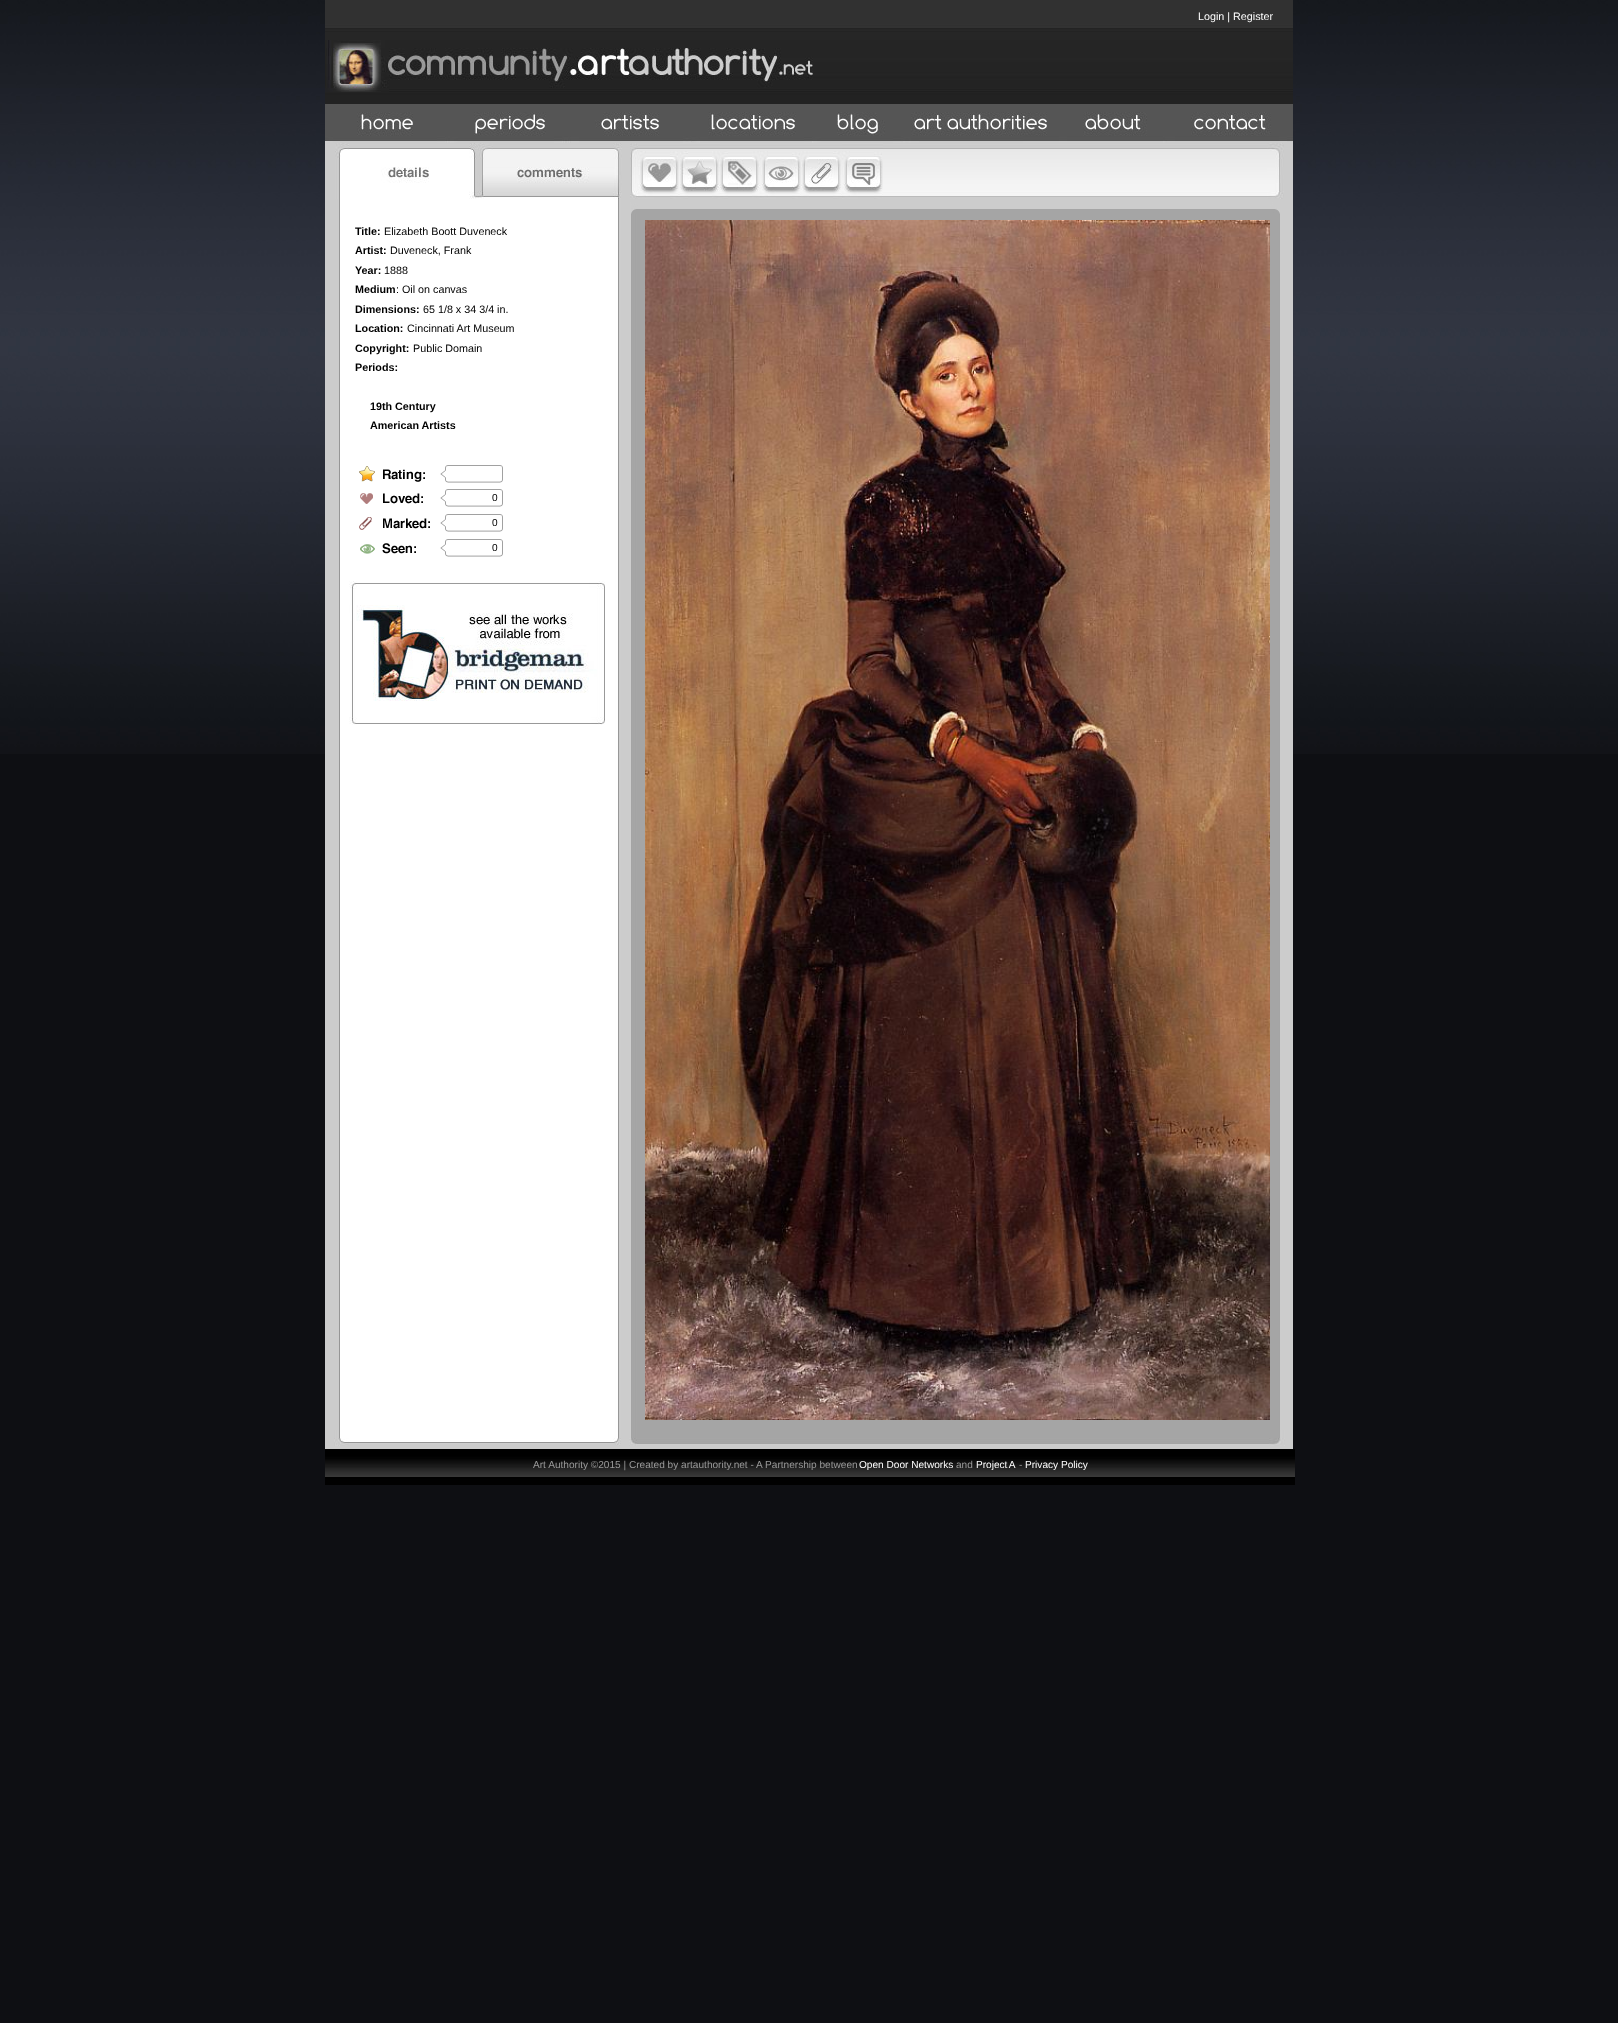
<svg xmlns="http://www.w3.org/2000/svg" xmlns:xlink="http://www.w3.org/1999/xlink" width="1618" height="2023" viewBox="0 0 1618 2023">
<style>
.cls-1{font:10.75px Liberation Sans;fill:#ffffff}
.cls-2{font:bold 10.75px Liberation Sans;fill:#000000}
.cls-3{font:10.75px Liberation Sans;fill:#000000}
.cls-4{font:10.1px Liberation Sans;fill:#000000}
.cls-5{font:10.1px Liberation Sans;fill:#999999}
.cls-6{font:10.1px Liberation Sans;fill:#ffffff}
</style>
<rect width="100%" height="100%" fill="#0e0f13"/>
<image xlink:href="image0.png" x="0" y="0" width="1618" height="754"/>
<rect fill="#cccccc" x="325" y="143" width="968" height="1306"/>
<image xlink:href="image1.png" x="325" y="0" width="968" height="104"/>
<image xlink:href="image2.png" x="325" y="40" width="488" height="52"/>
<image xlink:href="image3.png" x="325" y="104" width="125" height="39"/>
<image xlink:href="image4.png" x="450" y="104" width="121" height="39"/>
<image xlink:href="image5.png" x="571" y="104" width="121" height="39"/>
<image xlink:href="image6.png" x="692" y="104" width="121" height="39"/>
<image xlink:href="image7.png" x="813" y="104" width="90" height="39"/>
<image xlink:href="image8.png" x="903" y="104" width="156" height="39"/>
<image xlink:href="image9.png" x="1059" y="104" width="108" height="39"/>
<image xlink:href="image10.png" x="1167" y="104" width="126" height="39"/>
<image xlink:href="image11.png" x="339" y="143" width="941" height="1287"/>
<image xlink:href="image12.png" x="335" y="143" width="287" height="56"/>
<image xlink:href="image13.png" x="359" y="465" width="144" height="18"/>
<image xlink:href="image14.png" x="360" y="489" width="143" height="18"/>
<image xlink:href="image15.png" x="359" y="514" width="144" height="18"/>
<image xlink:href="image16.png" x="360" y="539" width="143" height="18"/>
<image xlink:href="image17.png" x="349" y="581" width="256" height="144"/>
<image xlink:href="image18.png" x="630" y="143" width="50" height="59"/>
<image xlink:href="image19.png" x="680" y="143" width="40" height="59"/>
<image xlink:href="image20.png" x="720" y="143" width="40" height="59"/>
<image xlink:href="image21.png" x="760" y="143" width="41" height="59"/>
<image xlink:href="image22.png" x="801" y="143" width="41" height="59"/>
<image xlink:href="image23.png" x="842" y="143" width="41" height="59"/>
<image xlink:href="image24.png" x="883" y="143" width="401" height="59"/>
<image xlink:href="image25.png" x="631" y="202" width="649" height="12"/>
<image xlink:href="image26.png" x="645" y="220" width="625" height="1200"/>
<image xlink:href="image27.png" x="334" y="1430" width="951" height="16"/>
<image xlink:href="image28.png" x="325" y="1449" width="970" height="36"/>
<text class="cls-1" x="1198" y="20">Login | Register</text>
<text class="cls-2" x="355" y="235">Title:</text>
<text class="cls-3" x="384" y="235">Elizabeth Boott Duveneck</text>
<text class="cls-2" x="355" y="254">Artist:</text>
<text class="cls-3" x="390" y="254">Duveneck, Frank</text>
<text class="cls-2" x="355" y="274">Year:</text>
<text class="cls-3" x="384" y="274">1888</text>
<text class="cls-2" x="355" y="293">Medium</text>
<text class="cls-3" x="396" y="293">: Oil on canvas</text>
<text class="cls-2" x="355" y="313">Dimensions:</text>
<text class="cls-3" x="423" y="313">65 1/8 x 34 3/4 in.</text>
<text class="cls-2" x="355" y="332">Location:</text>
<text class="cls-3" x="407" y="332">Cincinnati Art Museum</text>
<text class="cls-2" x="355" y="352">Copyright:</text>
<text class="cls-3" x="413" y="352">Public Domain</text>
<text class="cls-2" x="355" y="371">Periods:</text>
<text class="cls-2"><tspan x="370" y="410">19th Century</tspan><tspan x="370" y="429">American Artists</tspan></text>
<text class="cls-4" x="492" y="501">0</text>
<text class="cls-4" x="492" y="526">0</text>
<text class="cls-4" x="492" y="551">0</text>
<text class="cls-5" x="533" y="1468">Art Authority ©2015 | Created by artauthority.net - A Partnership between</text>
<text class="cls-6" x="859" y="1468">Open Door Networks</text>
<text class="cls-5" x="956" y="1468">and</text>
<text class="cls-6" x="976" y="1468" word-spacing="-1">Project A</text>
<text class="cls-5" x="1019" y="1468">-</text>
<text class="cls-6" x="1025" y="1468">Privacy Policy</text>
</svg>
